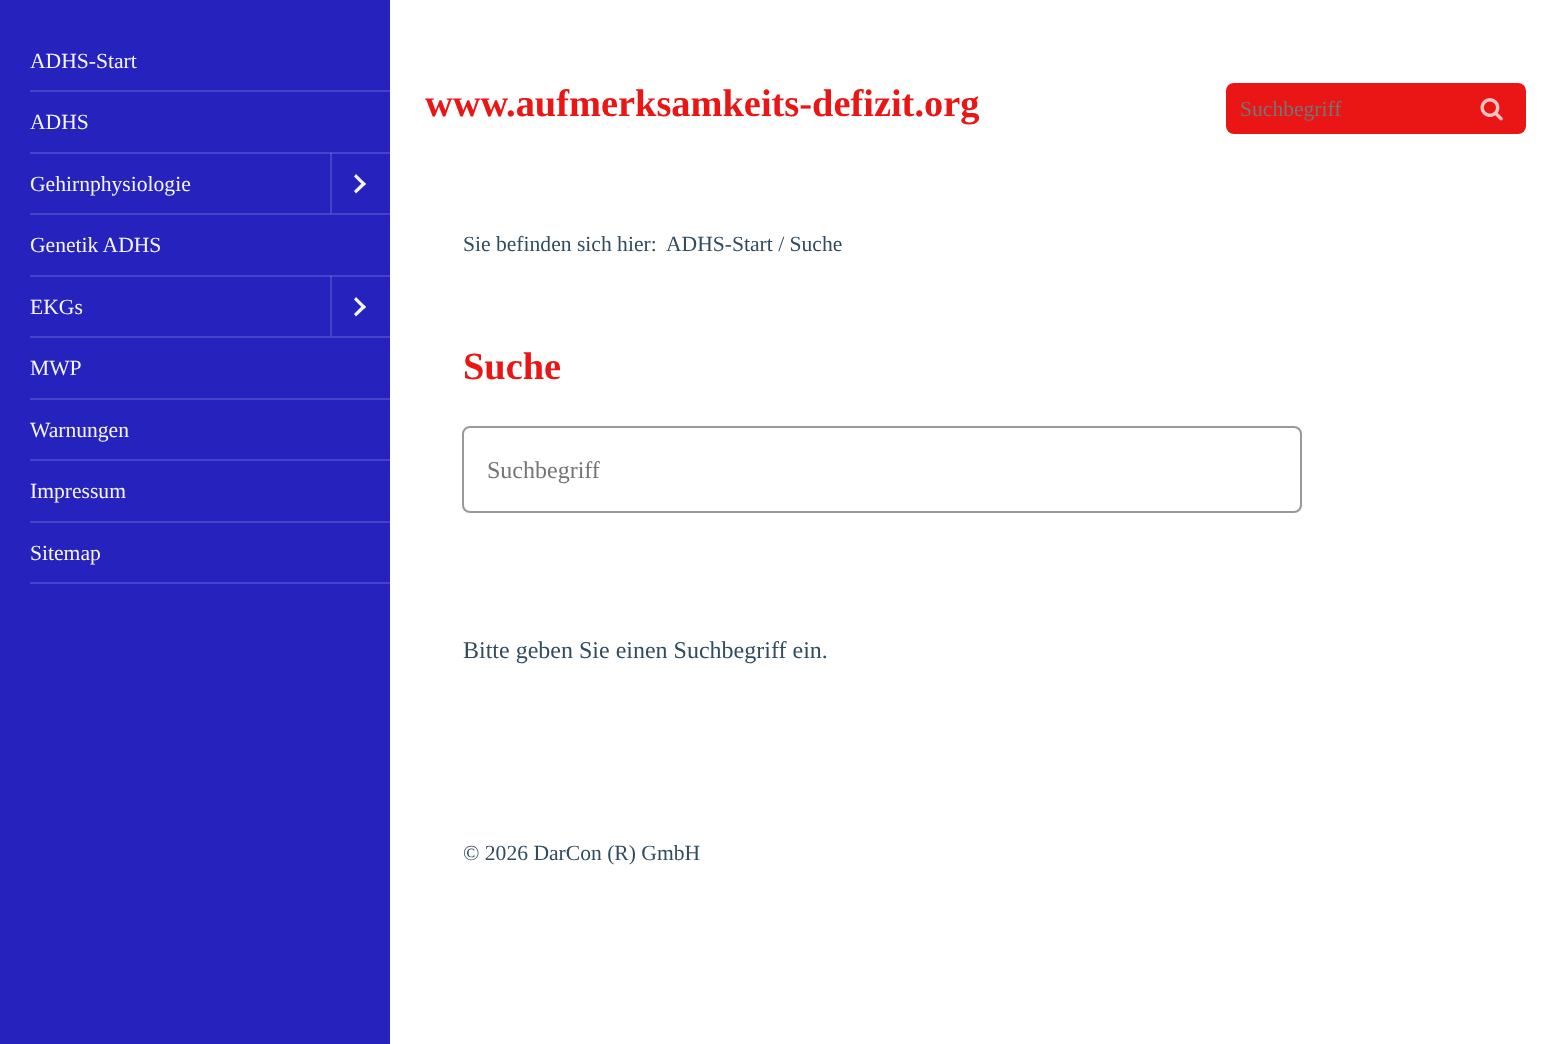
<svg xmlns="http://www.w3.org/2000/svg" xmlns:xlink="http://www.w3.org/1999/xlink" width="1559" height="1044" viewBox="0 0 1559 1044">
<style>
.cls-1{font:21.6px Liberation Serif;fill:#f5f5f5}
.cls-2{font:bold 38.4px Liberation Serif;fill:#ea1515}
.cls-3{font:21.6px Liberation Serif;fill:#757575}
.cls-4{font:21.6px Liberation Serif;fill:#314c61}
.cls-5{font:24px Liberation Serif;fill:#757575}
.cls-6{font:24px Liberation Serif;fill:#314c61}
</style>
<rect width="100%" height="100%" fill="#ffffff"/>
<rect fill="#2522be" x="0" y="0" width="390" height="1044"/>
<rect fill="#4643c8" x="330" y="276" width="2" height="60"/>
<rect fill="#4643c8" x="330" y="153" width="2" height="60"/>
<rect fill="#4643c8" x="30" y="90" width="360" height="2"/>
<rect fill="#4643c8" x="30" y="152" width="360" height="2"/>
<rect fill="#625fd0" x="330" y="153" width="2" height="1"/>
<path fill="#f5f5f5" d="M354 176.5L356 174L366 184L363.5 186Z"/>
<path fill="#f5f5f5" d="M354 191L363.5 181.5L366 184L356 193.5Z"/>
<rect fill="#4643c8" x="30" y="213" width="360" height="2"/>
<rect fill="#4643c8" x="30" y="275" width="360" height="2"/>
<rect fill="#625fd0" x="330" y="276" width="2" height="1"/>
<path fill="#f5f5f5" d="M354 299.5L356 297L366 307L363.5 309Z"/>
<path fill="#f5f5f5" d="M354 314L363.5 304.5L366 307L356 316.5Z"/>
<rect fill="#4643c8" x="30" y="336" width="360" height="2"/>
<rect fill="#4643c8" x="30" y="398" width="360" height="2"/>
<rect fill="#4643c8" x="30" y="459" width="360" height="2"/>
<rect fill="#4643c8" x="30" y="521" width="360" height="2"/>
<rect fill="#4643c8" x="30" y="582" width="360" height="2"/>
<rect fill="#ea1515" x="1226" y="83" width="300" height="51" rx="8"/>
<image xlink:href="image0.png" x="1480" y="98" width="23" height="23"/>
<rect fill="none" stroke="#999999" stroke-width="2" x="463" y="427" width="838" height="85" rx="7"/>
<text class="cls-1" x="30" y="68">ADHS-Start</text>
<text class="cls-1" x="30" y="129">ADHS</text>
<text class="cls-1" x="30" y="191">Gehirnphysiologie</text>
<text class="cls-1" x="30" y="252">Genetik ADHS</text>
<text class="cls-1" x="30" y="314">EKGs</text>
<text class="cls-1" x="30" y="375">MWP</text>
<text class="cls-1" x="30" y="437">Warnungen</text>
<text class="cls-1" x="30" y="498">Impressum</text>
<text class="cls-1" x="30" y="560">Sitemap</text>
<text class="cls-2" x="425" y="116">www.aufmerksamkeits-defizit.org</text>
<text class="cls-3" x="1240" y="116">Suchbegriff</text>
<text class="cls-4" x="463" y="251">Sie befinden sich hier:</text>
<text class="cls-4" x="666" y="251">ADHS-Start / Suche</text>
<text class="cls-2" x="463" y="379">Suche</text>
<text class="cls-5" x="487" y="478">Suchbegriff</text>
<text class="cls-6" x="463" y="658">Bitte geben Sie einen Suchbegriff ein.</text>
<text class="cls-4" x="463" y="860">© 2026 DarCon (R) GmbH</text>
</svg>
